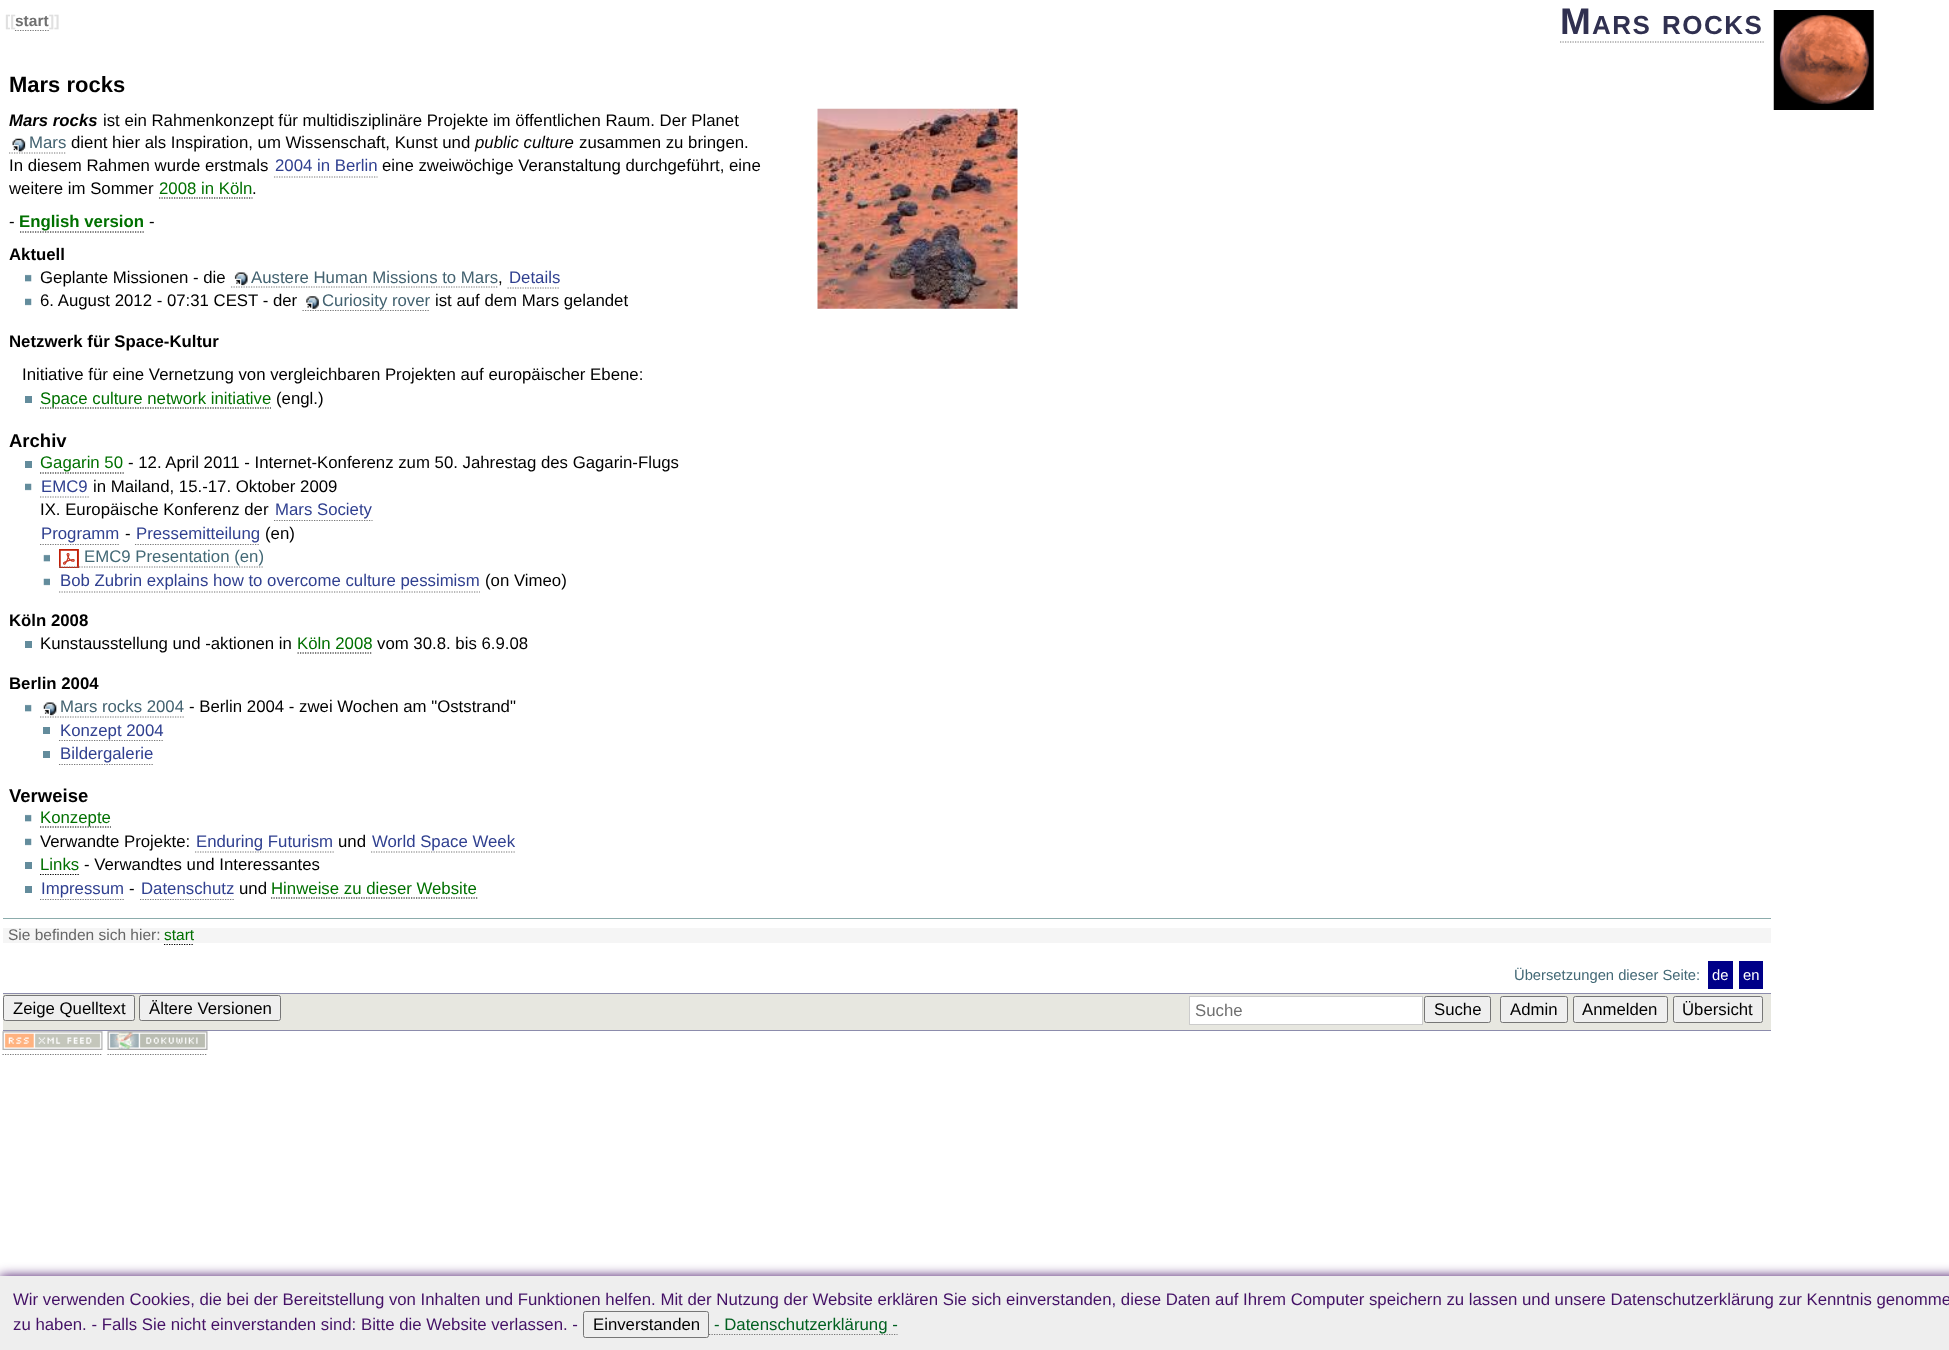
<svg xmlns="http://www.w3.org/2000/svg" xmlns:xlink="http://www.w3.org/1999/xlink" width="1949" height="1350" viewBox="0 0 1949 1350">
<style>
.cls-1{font:bold 15.5px Liberation Sans;fill:#e0e0e0}
.cls-2{font:bold 15.5px Liberation Sans;fill:#707070}
.cls-3{font:bold 37px Liberation Sans;letter-spacing:1.5px;fill:#303050}
.cls-4{font:bold 26px Liberation Sans;letter-spacing:1.5px;fill:#303050}
.cls-5{font:bold 22px Liberation Sans;fill:#000000}
.cls-6{font:italic bold 16.8px Liberation Sans;fill:#000000}
.cls-7{font:16.8px Liberation Sans;fill:#000000}
.cls-8{font:16.8px Liberation Sans;fill:#436270}
.cls-9{font:italic 16.8px Liberation Sans;fill:#000000}
.cls-10{font:16.8px Liberation Sans;fill:#304090}
.cls-11{font:16.8px Liberation Sans;fill:#007000}
.cls-12{font:bold 16.8px Liberation Sans;fill:#007000}
.cls-13{font:bold 16.8px Liberation Sans;fill:#000000}
.cls-14{font:bold 18.5px Liberation Sans;fill:#000000}
.cls-15{font:16.8px Liberation Sans;fill:#436976}
.cls-16{font:16.8px Liberation Sans;fill:#441166}
.cls-17{font:16.75px Liberation Sans;fill:#000000}
.cls-18{font:16.8px Liberation Sans;fill:#006020}
.cls-19{font:15.5px Liberation Sans;fill:#666666}
.cls-20{font:15.5px Liberation Sans;fill:#007000}
.cls-21{font:14.75px Liberation Sans;fill:#436976}
.cls-22{font:14.75px Liberation Sans;fill:#ffffff}
.cls-23{font:16.8px Liberation Sans;fill:#707070}
</style>
<rect width="100%" height="100%" fill="#ffffff"/>
<path fill="none" stroke="#777777" stroke-width="1.2" stroke-dasharray="1.25 1.25" d="M1560 42H1764"/>
<image xlink:href="image0.png" x="817" y="108" width="201" height="201"/>
<image xlink:href="image1.png" x="12" y="138" width="14" height="14"/>
<path fill="none" stroke="#777777" stroke-width="1.2" stroke-dasharray="1.25 1.25" d="M9 153H66"/>
<path fill="none" stroke="#777777" stroke-width="1.2" stroke-dasharray="1.25 1.25" d="M274 177H377.5"/>
<path fill="none" stroke="#000000" stroke-width="1.2" stroke-dasharray="1.25 1.25" d="M159 198H252.5"/>
<path fill="none" stroke="#000000" stroke-width="1.2" stroke-dasharray="1.25 1.25" d="M20 232H145"/>
<image xlink:href="image2.png" x="25" y="274" width="7" height="8"/>
<image xlink:href="image3.png" x="234" y="272" width="14" height="14"/>
<path fill="none" stroke="#777777" stroke-width="1.2" stroke-dasharray="1.25 1.25" d="M231 287H497.5"/>
<path fill="none" stroke="#777777" stroke-width="1.2" stroke-dasharray="1.25 1.25" d="M507.5 288H560"/>
<image xlink:href="image4.png" x="25" y="298" width="7" height="8"/>
<image xlink:href="image5.png" x="306" y="296" width="13" height="13"/>
<path fill="none" stroke="#777777" stroke-width="1.2" stroke-dasharray="1.25 1.25" d="M302.5 310.5H430"/>
<rect fill="#638c9c" x="25" y="396" width="7" height="7"/>
<path fill="none" stroke="#000000" stroke-width="1.2" stroke-dasharray="1.25 1.25" d="M40 408H271"/>
<rect fill="#638c9c" x="25" y="461" width="7" height="7"/>
<path fill="none" stroke="#000000" stroke-width="1.2" stroke-dasharray="1.25 1.25" d="M40 473H124"/>
<image xlink:href="image4.png" x="25" y="483" width="7" height="8"/>
<path fill="none" stroke="#777777" stroke-width="1.2" stroke-dasharray="1.25 1.25" d="M40 497H89"/>
<path fill="none" stroke="#777777" stroke-width="1.2" stroke-dasharray="1.25 1.25" d="M274 520.5H372.5"/>
<path fill="none" stroke="#777777" stroke-width="1.2" stroke-dasharray="1.25 1.25" d="M40 544.5H120"/>
<path fill="none" stroke="#777777" stroke-width="1.2" stroke-dasharray="1.25 1.25" d="M135 544.5H260"/>
<image xlink:href="image6.png" x="43" y="554" width="7" height="8"/>
<image xlink:href="image7.png" x="59" y="549" width="20" height="19"/>
<path fill="none" stroke="#777777" stroke-width="1.2" stroke-dasharray="1.25 1.25" d="M59 567H264"/>
<image xlink:href="image8.png" x="43" y="578" width="7" height="8"/>
<path fill="none" stroke="#777777" stroke-width="1.2" stroke-dasharray="1.25 1.25" d="M59 592H480"/>
<rect fill="#638c9c" x="25" y="641" width="7" height="7"/>
<path fill="none" stroke="#000000" stroke-width="1.2" stroke-dasharray="1.25 1.25" d="M297.5 653H372.5"/>
<image xlink:href="image2.png" x="25" y="704" width="7" height="8"/>
<image xlink:href="image9.png" x="43" y="702" width="14" height="14"/>
<path fill="none" stroke="#777777" stroke-width="1.2" stroke-dasharray="1.25 1.25" d="M40 717H184"/>
<rect fill="#638c9c" x="43" y="727" width="7" height="7"/>
<path fill="none" stroke="#777777" stroke-width="1.2" stroke-dasharray="1.25 1.25" d="M59 740.5H164"/>
<rect fill="#638c9c" x="43" y="751" width="7" height="7"/>
<path fill="none" stroke="#777777" stroke-width="1.2" stroke-dasharray="1.25 1.25" d="M59 764.5H154"/>
<image xlink:href="image2.png" x="25" y="814" width="7" height="8"/>
<path fill="none" stroke="#000000" stroke-width="1.2" stroke-dasharray="1.25 1.25" d="M40 827H111"/>
<image xlink:href="image4.png" x="25" y="838" width="7" height="8"/>
<path fill="none" stroke="#777777" stroke-width="1.2" stroke-dasharray="1.25 1.25" d="M195 852H334"/>
<path fill="none" stroke="#777777" stroke-width="1.2" stroke-dasharray="1.25 1.25" d="M371 852H515"/>
<rect fill="#638c9c" x="25" y="862" width="7" height="7"/>
<path fill="none" stroke="#000000" stroke-width="1.2" stroke-dasharray="1.25 1.25" d="M40 874.5H80"/>
<rect fill="#638c9c" x="25" y="886" width="7" height="7"/>
<path fill="none" stroke="#777777" stroke-width="1.2" stroke-dasharray="1.25 1.25" d="M40 899.5H125"/>
<path fill="none" stroke="#777777" stroke-width="1.2" stroke-dasharray="1.25 1.25" d="M140 899.5H234"/>
<path fill="none" stroke="#000000" stroke-width="1.2" stroke-dasharray="1.25 1.25" d="M271 898H477.5"/>
<rect fill="#441166" filter="blur(6px)" x="0" y="1276" width="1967" height="74"/>
<rect fill="#eeeeee" x="0" y="1276" width="1949" height="74"/>
<rect fill="none" stroke="#767676" x="583.5" y="1311.5" width="125" height="26" rx="2"/>
<path fill="none" stroke="#777777" stroke-width="1.2" stroke-dasharray="1.25 1.25" d="M709 1334.5H897.5"/>
<rect fill="#8cacac" x="3" y="918" width="1768" height="1"/>
<rect fill="#f5f5f5" x="3" y="928" width="1768" height="15"/>
<path fill="none" stroke="#000000" stroke-width="1.2" stroke-dasharray="1.25 1.25" d="M164 944.5H194"/>
<rect fill="#000088" x="1708" y="961" width="25" height="28"/>
<rect fill="#000088" x="1739" y="961" width="24" height="28"/>
<rect fill="#e7e7e0" x="3" y="994" width="1768" height="36"/>
<rect fill="#8c8cac" x="3" y="993" width="1768" height="1"/>
<rect fill="#8c8cac" x="3" y="1030" width="1768" height="1"/>
<rect fill="#efefef" stroke="#767676" x="3.5" y="995.5" width="131" height="25" rx="2"/>
<rect fill="#efefef" stroke="#767676" x="139.5" y="995.5" width="141" height="25" rx="2"/>
<rect fill="#ffffff" stroke="#cccccc" x="1189.5" y="996.5" width="233" height="28"/>
<rect fill="#efefef" stroke="#767676" x="1424.5" y="996.5" width="66" height="26" rx="2"/>
<rect fill="#efefef" stroke="#767676" x="1500.5" y="996.5" width="67" height="26" rx="2"/>
<rect fill="#efefef" stroke="#767676" x="1573.5" y="996.5" width="94" height="26" rx="2"/>
<rect fill="#efefef" stroke="#767676" x="1673.5" y="996.5" width="89" height="26" rx="2"/>
<image xlink:href="image10.png" x="2" y="1031" width="101" height="19"/>
<image xlink:href="image11.png" x="107" y="1031" width="101" height="19"/>
<path fill="none" stroke="#777777" stroke-width="1.2" stroke-dasharray="1.25 1.25" d="M2.5 1054.5H102.5"/>
<path fill="none" stroke="#777777" stroke-width="1.2" stroke-dasharray="1.25 1.25" d="M107.5 1054.5H207.5"/>
<image xlink:href="image12.png" x="1773" y="10" width="101" height="100"/>
<text class="cls-1" x="5" y="26">[[</text>
<text class="cls-2" x="15" y="26">start</text>
<path fill="none" stroke="#777777" stroke-width="1.2" stroke-dasharray="1.25 1.25" d="M15 30.5H49"/>
<text class="cls-1" x="49" y="26">]]</text>
<text class="cls-3" x="1560" y="34">M</text>
<text class="cls-4" x="1592" y="34">ARS</text>
<text class="cls-4" x="1662" y="34">ROCKS</text>
<text class="cls-5" x="9" y="92">Mars rocks</text>
<text class="cls-6" x="9" y="126">Mars rocks</text>
<text class="cls-7" x="103" y="126">ist ein Rahmenkonzept für multidisziplinäre Projekte im öffentlichen Raum. Der Planet</text>
<text class="cls-8" x="29" y="148">Mars</text>
<text class="cls-7" x="71" y="148">dient hier als Inspiration, um Wissenschaft, Kunst und</text>
<text class="cls-9" x="475" y="148">public culture</text>
<text class="cls-7" x="579" y="148">zusammen zu bringen.</text>
<text class="cls-7" x="9" y="171">In diesem Rahmen wurde erstmals</text>
<text class="cls-10" x="275" y="171">2004 in Berlin</text>
<text class="cls-7" x="382" y="171">eine zweiwöchige Veranstaltung durchgeführt, eine</text>
<text class="cls-7" x="9" y="194">weitere im Sommer</text>
<text class="cls-11" x="159" y="194">2008 in Köln</text>
<text class="cls-7" x="252" y="194">.</text>
<text class="cls-7" x="9" y="227">-</text>
<text class="cls-12" x="19" y="227">English version</text>
<text class="cls-7" x="149" y="227">-</text>
<text class="cls-13" x="9" y="260">Aktuell</text>
<text class="cls-7" x="40" y="283">Geplante Missionen - die</text>
<text class="cls-8" x="251" y="283">Austere Human Missions to Mars</text>
<text class="cls-7" x="498" y="283">,</text>
<text class="cls-10" x="509" y="283">Details</text>
<text class="cls-7" x="40" y="306">6. August 2012 - 07:31 CEST - der</text>
<text class="cls-8" x="322" y="306">Curiosity rover</text>
<text class="cls-7" x="435" y="306">ist auf dem Mars gelandet</text>
<text class="cls-13" x="9" y="347">Netzwerk für Space-Kultur</text>
<text class="cls-7" x="22" y="380">Initiative für eine Vernetzung von vergleichbaren Projekten auf europäischer Ebene:</text>
<text class="cls-11" x="40" y="404">Space culture network initiative</text>
<text class="cls-7" x="276" y="404">(engl.)</text>
<text class="cls-14" x="9" y="447">Archiv</text>
<text class="cls-11" x="40" y="468">Gagarin 50</text>
<text class="cls-7" x="128" y="468">- 12. April 2011 - Internet-Konferenz zum 50. Jahrestag des Gagarin-Flugs</text>
<text class="cls-10" x="41" y="492">EMC9</text>
<text class="cls-7" x="93" y="492">in Mailand, 15.-17. Oktober 2009</text>
<text class="cls-7" x="40" y="515">IX. Europäische Konferenz der</text>
<text class="cls-10" x="275" y="515">Mars Society</text>
<text class="cls-10" x="41" y="539">Programm</text>
<text class="cls-7" x="125" y="539">-</text>
<text class="cls-10" x="136" y="539">Pressemitteilung</text>
<text class="cls-7" x="265" y="539">(en)</text>
<text class="cls-15" x="84" y="562">EMC9 Presentation (en)</text>
<text class="cls-10" x="60" y="586">Bob Zubrin explains how to overcome culture pessimism</text>
<text class="cls-7" x="485" y="586">(on Vimeo)</text>
<text class="cls-13" x="9" y="626">Köln 2008</text>
<text class="cls-7" x="40" y="649">Kunstausstellung und -aktionen in</text>
<text class="cls-11" x="297" y="649">Köln 2008</text>
<text class="cls-7" x="377" y="649">vom 30.8. bis 6.9.08</text>
<text class="cls-13" x="9" y="689">Berlin 2004</text>
<text class="cls-8" x="60" y="712">Mars rocks 2004</text>
<text class="cls-7" x="189" y="712">- Berlin 2004 - zwei Wochen am "Oststrand"</text>
<text class="cls-10"><tspan x="60" y="736">Konzept 2004</tspan><tspan x="60" y="759">Bildergalerie</tspan></text>
<text class="cls-14" x="9" y="802">Verweise</text>
<text class="cls-11" x="40" y="823">Konzepte</text>
<text class="cls-7" x="40" y="847">Verwandte Projekte:</text>
<text class="cls-10" x="196" y="847">Enduring Futurism</text>
<text class="cls-7" x="338" y="847">und</text>
<text class="cls-10" x="372" y="847">World Space Week</text>
<text class="cls-11" x="40" y="870">Links</text>
<text class="cls-7" x="84" y="870">- Verwandtes und Interessantes</text>
<text class="cls-10" x="41" y="894">Impressum</text>
<text class="cls-7" x="129" y="894">-</text>
<text class="cls-10" x="141" y="894">Datenschutz</text>
<text class="cls-7" x="239" y="894">und</text>
<text class="cls-11" x="271" y="894">Hinweise zu dieser Website</text>
<text class="cls-16"><tspan x="13" y="1305">Wir verwenden Cookies, die bei der Bereitstellung von Inhalten und Funktionen helfen. Mit der Nutzung der Website erklären Sie sich einverstanden, diese Daten auf Ihrem Computer speichern zu lassen und unsere Datenschutzerklärung zur Kenntnis genomme</tspan><tspan x="13" y="1330">zu haben. - Falls Sie nicht einverstanden sind: Bitte die Website verlassen. -</tspan></text>
<text class="cls-17" x="593" y="1330">Einverstanden</text>
<text class="cls-18" x="714" y="1330">- Datenschutzerklärung -</text>
<text class="cls-19" x="8" y="940">Sie befinden sich hier:</text>
<text class="cls-20" x="164" y="940">start</text>
<text class="cls-21" x="1514" y="980">Übersetzungen dieser Seite:</text>
<text class="cls-22" x="1712" y="980">de</text>
<text class="cls-22" x="1743" y="980">en</text>
<text class="cls-17" x="13" y="1014">Zeige Quelltext</text>
<text class="cls-17" x="149" y="1014">Ältere Versionen</text>
<text class="cls-23" x="1195" y="1016">Suche</text>
<text class="cls-17" x="1434" y="1015">Suche</text>
<text class="cls-17" x="1510" y="1015">Admin</text>
<text class="cls-17" x="1582" y="1015">Anmelden</text>
<text class="cls-17" x="1682" y="1015">Übersicht</text>
</svg>
